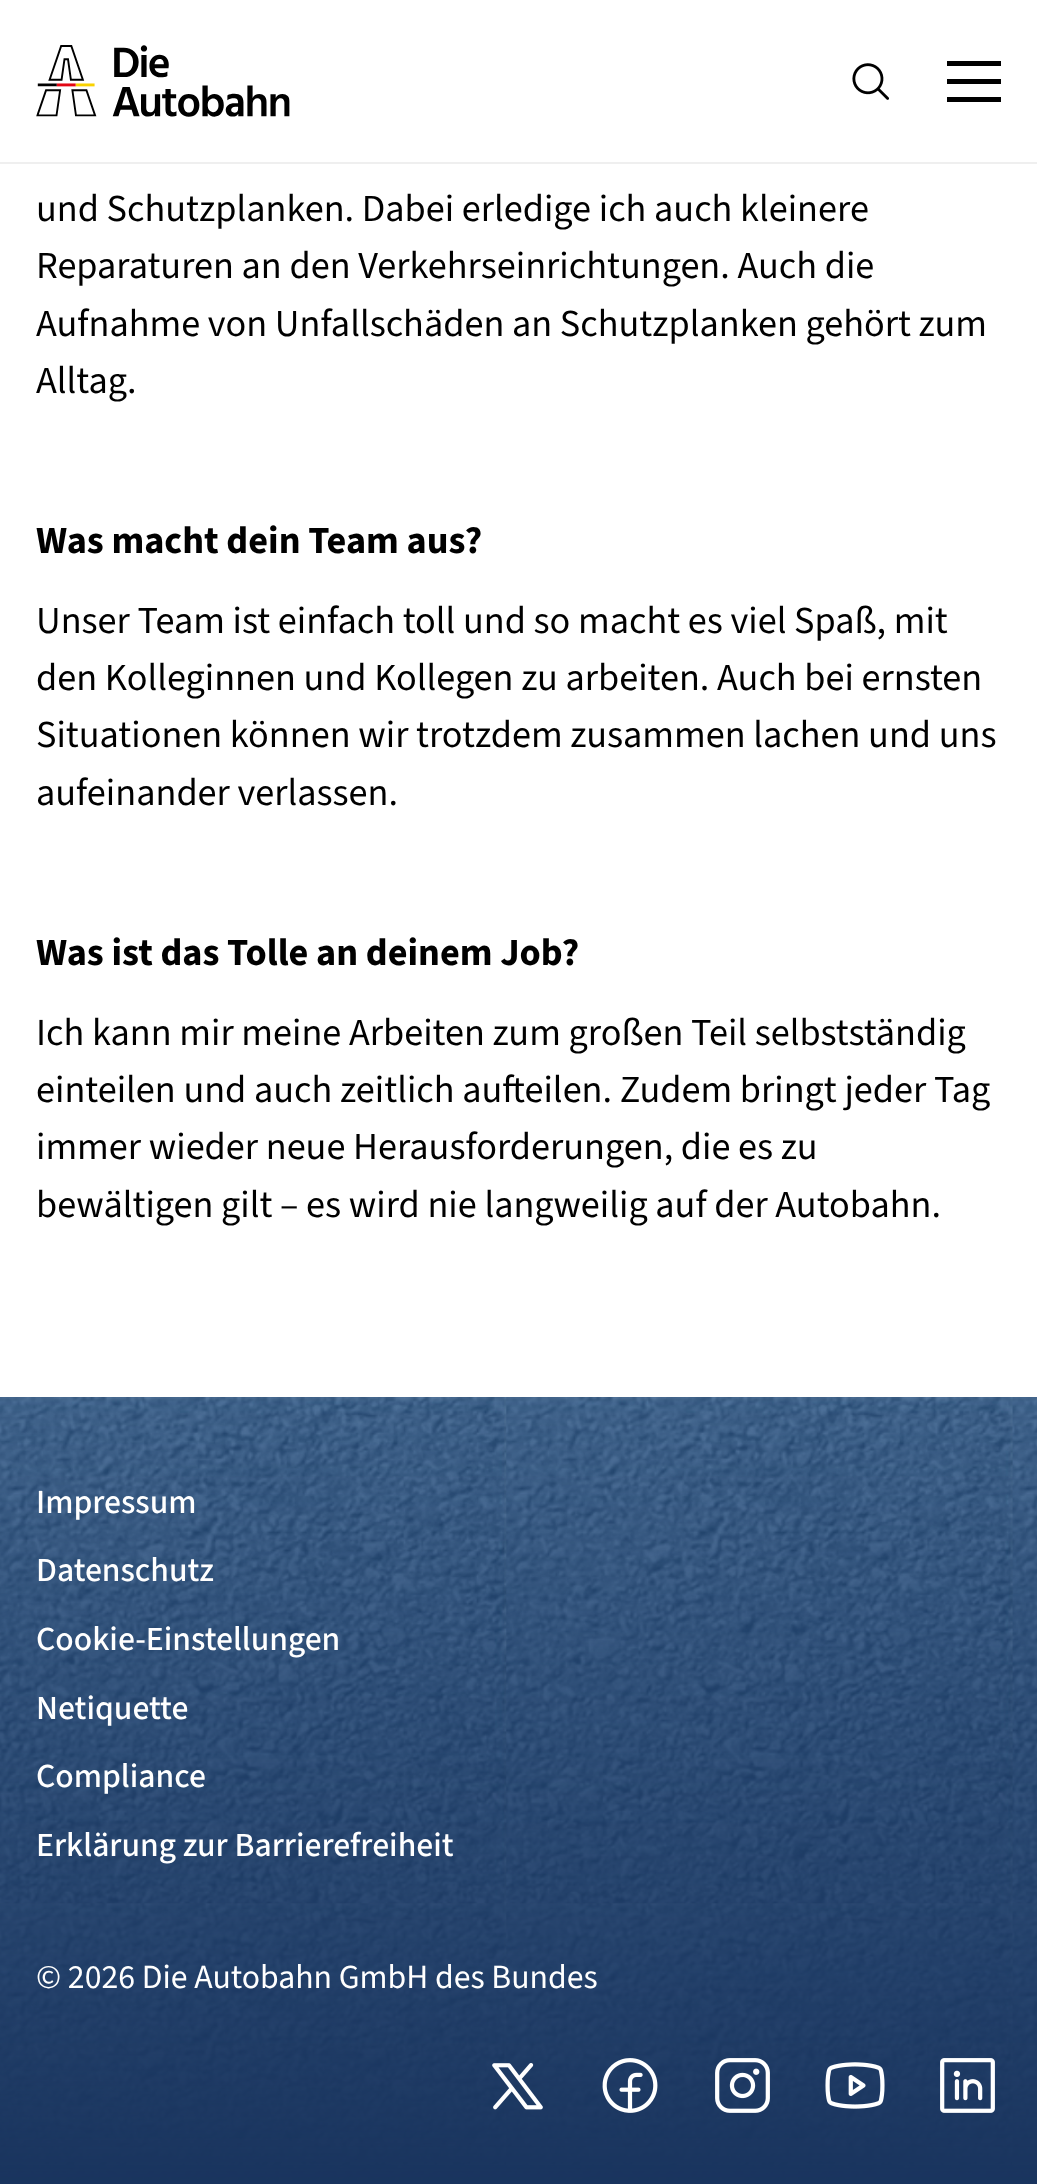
<svg xmlns="http://www.w3.org/2000/svg" xmlns:xlink="http://www.w3.org/1999/xlink" width="1037" height="2184" viewBox="0 0 1037 2184">
<style>
.cls-1{font:200 38.25px 'Source Sans 3';fill:#000000}
.cls-2{font:200 38.25px 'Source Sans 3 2';fill:#000000}
.cls-3{font:200 33.75px 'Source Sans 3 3';fill:#ffffff}
.cls-4{font:200 33.75px 'Source Sans 3';fill:#ffffff}
</style>
<rect width="100%" height="100%" fill="#ffffff"/>
<rect fill="#efefef" x="0" y="162" width="1037" height="2"/>
<image xlink:href="image0.png" x="36" y="45" width="254" height="72"/>
<image xlink:href="image1.png" x="852" y="63" width="37" height="37"/>
<rect fill="#000000" x="947" y="61" width="54" height="5"/>
<rect fill="#000000" x="947" y="79" width="54" height="5"/>
<rect fill="#000000" x="947" y="97" width="54" height="5"/>
<image xlink:href="image2.png" x="0" y="1397" width="1037" height="787"/>
<image xlink:href="image3.png" x="492" y="2063" width="51" height="47"/>
<image xlink:href="image4.png" x="602" y="2058" width="56" height="55"/>
<image xlink:href="image5.png" x="715" y="2058" width="55" height="55"/>
<image xlink:href="image6.png" x="825" y="2062" width="60" height="47"/>
<image xlink:href="image7.png" x="940" y="2058" width="55" height="55"/>
<text class="cls-1"><tspan x="36" y="221">und Schutzplanken. Dabei erledige ich auch kleinere</tspan><tspan x="36" y="278">Reparaturen an den Verkehrseinrichtungen. Auch die</tspan><tspan x="36" y="336">Aufnahme von Unfallschäden an Schutzplanken gehört zum</tspan><tspan x="36" y="393">Alltag.</tspan></text>
<text class="cls-2" x="36" y="553">Was macht dein Team aus?</text>
<text class="cls-1"><tspan x="36" y="633">Unser Team ist einfach toll und so macht es viel Spaß, mit</tspan><tspan x="36" y="690">den Kolleginnen und Kollegen zu arbeiten. Auch bei ernsten</tspan><tspan x="36" y="747">Situationen können wir trotzdem zusammen lachen und uns</tspan><tspan x="36" y="805">aufeinander verlassen.</tspan></text>
<text class="cls-2" x="36" y="965">Was ist das Tolle an deinem Job?</text>
<text class="cls-1"><tspan x="36" y="1045">Ich kann mir meine Arbeiten zum großen Teil selbstständig</tspan><tspan x="36" y="1102">einteilen und auch zeitlich aufteilen. Zudem bringt jeder Tag</tspan><tspan x="36" y="1159">immer wieder neue Herausforderungen, die es zu</tspan><tspan x="36" y="1217">bewältigen gilt – es wird nie langweilig auf der Autobahn.</tspan></text>
<text class="cls-3" x="36" y="1513">Impressum</text>
<text class="cls-3" x="36" y="1581">Datenschutz</text>
<text class="cls-3" x="36" y="1650">Cookie-Einstellungen</text>
<text class="cls-3" x="36" y="1719">Netiquette</text>
<text class="cls-3" x="36" y="1787">Compliance</text>
<text class="cls-3" x="36" y="1856">Erklärung zur Barrierefreiheit</text>
<text class="cls-4" x="36" y="1988">© 2026 Die Autobahn GmbH des Bundes</text>
</svg>
